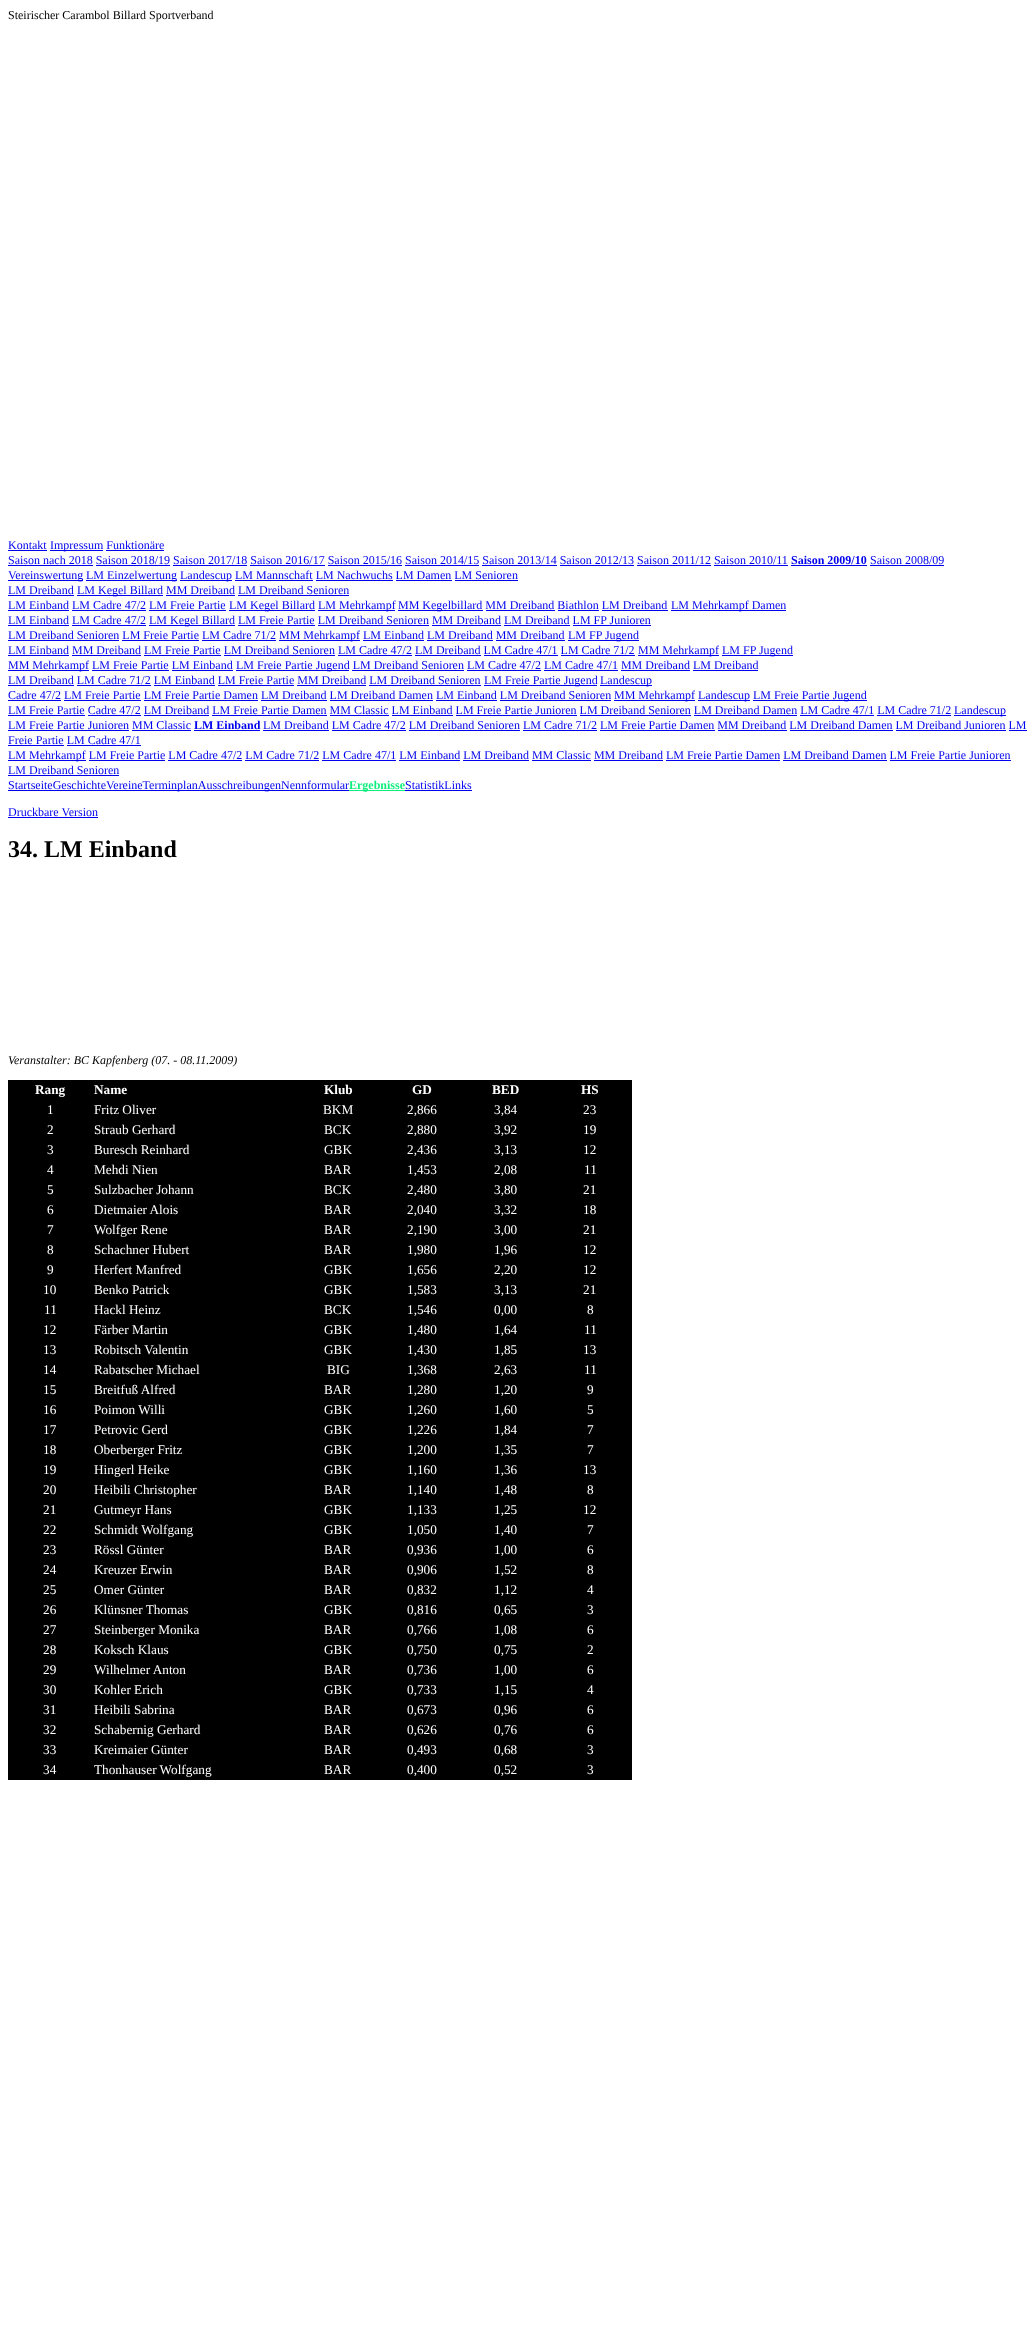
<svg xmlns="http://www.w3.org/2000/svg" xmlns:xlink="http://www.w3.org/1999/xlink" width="1036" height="2325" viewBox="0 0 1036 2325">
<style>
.cls-1{font:12px Liberation Serif;fill:#000000}
.cls-2{font:12px Liberation Serif;fill:#0000ee}
.cls-3{font:bold 12px Liberation Serif;fill:#0000ee}
.cls-4{font:bold 12px Liberation Serif;fill:#0eed7e}
.cls-5{font:bold 24px Liberation Serif;fill:#000000}
.cls-6{font:italic 12px Liberation Serif;fill:#000000}
.cls-7{font:bold 13.25px Liberation Serif;fill:#ffffff}
.cls-8{font:13.25px Liberation Serif;fill:#ffffff}
</style>
<rect width="100%" height="100%" fill="#ffffff"/>
<rect fill="#0000ee" x="8" y="550" width="39" height="1"/>
<rect fill="#0000ee" x="50" y="550" width="53" height="1"/>
<rect fill="#0000ee" x="106" y="550" width="58" height="1"/>
<rect fill="#0000ee" x="8" y="565" width="85" height="1"/>
<rect fill="#0000ee" x="791" y="565" width="76" height="1"/>
<rect fill="#0000ee" x="870" y="565" width="74" height="1"/>
<rect fill="#0000ee" x="96" y="565" width="74" height="1"/>
<rect fill="#0000ee" x="173" y="565" width="74" height="1"/>
<rect fill="#0000ee" x="250" y="565" width="75" height="1"/>
<rect fill="#0000ee" x="328" y="565" width="74" height="1"/>
<rect fill="#0000ee" x="405" y="565" width="74" height="1"/>
<rect fill="#0000ee" x="482" y="565" width="75" height="1"/>
<rect fill="#0000ee" x="560" y="565" width="74" height="1"/>
<rect fill="#0000ee" x="637" y="565" width="74" height="1"/>
<rect fill="#0000ee" x="714" y="565" width="74" height="1"/>
<rect fill="#0000ee" x="8" y="580" width="75" height="1"/>
<rect fill="#0000ee" x="86" y="580" width="91" height="1"/>
<rect fill="#0000ee" x="180" y="580" width="52" height="1"/>
<rect fill="#0000ee" x="235" y="580" width="78" height="1"/>
<rect fill="#0000ee" x="316" y="580" width="77" height="1"/>
<rect fill="#0000ee" x="396" y="580" width="56" height="1"/>
<rect fill="#0000ee" x="455" y="580" width="63" height="1"/>
<rect fill="#0000ee" x="8" y="595" width="66" height="1"/>
<rect fill="#0000ee" x="77" y="595" width="86" height="1"/>
<rect fill="#0000ee" x="166" y="595" width="69" height="1"/>
<rect fill="#0000ee" x="238" y="595" width="111" height="1"/>
<rect fill="#0000ee" x="8" y="610" width="61" height="1"/>
<rect fill="#0000ee" x="229" y="610" width="86" height="1"/>
<rect fill="#0000ee" x="318" y="610" width="77" height="1"/>
<rect fill="#0000ee" x="398" y="610" width="85" height="1"/>
<rect fill="#0000ee" x="671" y="610" width="115" height="1"/>
<rect fill="#0000ee" x="72" y="610" width="74" height="1"/>
<rect fill="#0000ee" x="149" y="610" width="77" height="1"/>
<rect fill="#0000ee" x="486" y="610" width="69" height="1"/>
<rect fill="#0000ee" x="558" y="610" width="41" height="1"/>
<rect fill="#0000ee" x="602" y="610" width="66" height="1"/>
<rect fill="#0000ee" x="8" y="625" width="61" height="1"/>
<rect fill="#0000ee" x="149" y="625" width="86" height="1"/>
<rect fill="#0000ee" x="72" y="625" width="74" height="1"/>
<rect fill="#0000ee" x="238" y="625" width="77" height="1"/>
<rect fill="#0000ee" x="318" y="625" width="111" height="1"/>
<rect fill="#0000ee" x="432" y="625" width="69" height="1"/>
<rect fill="#0000ee" x="504" y="625" width="66" height="1"/>
<rect fill="#0000ee" x="573" y="625" width="78" height="1"/>
<rect fill="#0000ee" x="8" y="640" width="111" height="1"/>
<rect fill="#0000ee" x="279" y="640" width="81" height="1"/>
<rect fill="#0000ee" x="568" y="640" width="71" height="1"/>
<rect fill="#0000ee" x="122" y="640" width="77" height="1"/>
<rect fill="#0000ee" x="202" y="640" width="74" height="1"/>
<rect fill="#0000ee" x="363" y="640" width="61" height="1"/>
<rect fill="#0000ee" x="427" y="640" width="66" height="1"/>
<rect fill="#0000ee" x="496" y="640" width="69" height="1"/>
<rect fill="#0000ee" x="8" y="655" width="61" height="1"/>
<rect fill="#0000ee" x="638" y="655" width="81" height="1"/>
<rect fill="#0000ee" x="722" y="655" width="71" height="1"/>
<rect fill="#0000ee" x="72" y="655" width="69" height="1"/>
<rect fill="#0000ee" x="144" y="655" width="77" height="1"/>
<rect fill="#0000ee" x="224" y="655" width="111" height="1"/>
<rect fill="#0000ee" x="338" y="655" width="74" height="1"/>
<rect fill="#0000ee" x="415" y="655" width="66" height="1"/>
<rect fill="#0000ee" x="484" y="655" width="74" height="1"/>
<rect fill="#0000ee" x="561" y="655" width="74" height="1"/>
<rect fill="#0000ee" x="8" y="670" width="81" height="1"/>
<rect fill="#0000ee" x="236" y="670" width="113" height="1"/>
<rect fill="#0000ee" x="92" y="670" width="77" height="1"/>
<rect fill="#0000ee" x="172" y="670" width="61" height="1"/>
<rect fill="#0000ee" x="352" y="670" width="112" height="1"/>
<rect fill="#0000ee" x="467" y="670" width="74" height="1"/>
<rect fill="#0000ee" x="544" y="670" width="74" height="1"/>
<rect fill="#0000ee" x="621" y="670" width="69" height="1"/>
<rect fill="#0000ee" x="693" y="670" width="65" height="1"/>
<rect fill="#0000ee" x="8" y="685" width="66" height="1"/>
<rect fill="#0000ee" x="484" y="685" width="113" height="1"/>
<rect fill="#0000ee" x="600" y="685" width="52" height="1"/>
<rect fill="#0000ee" x="77" y="685" width="74" height="1"/>
<rect fill="#0000ee" x="154" y="685" width="61" height="1"/>
<rect fill="#0000ee" x="218" y="685" width="76" height="1"/>
<rect fill="#0000ee" x="297" y="685" width="69" height="1"/>
<rect fill="#0000ee" x="369" y="685" width="112" height="1"/>
<rect fill="#0000ee" x="8" y="700" width="53" height="1"/>
<rect fill="#0000ee" x="614" y="700" width="81" height="1"/>
<rect fill="#0000ee" x="698" y="700" width="52" height="1"/>
<rect fill="#0000ee" x="753" y="700" width="114" height="1"/>
<rect fill="#0000ee" x="64" y="700" width="77" height="1"/>
<rect fill="#0000ee" x="144" y="700" width="114" height="1"/>
<rect fill="#0000ee" x="261" y="700" width="66" height="1"/>
<rect fill="#0000ee" x="330" y="700" width="103" height="1"/>
<rect fill="#0000ee" x="436" y="700" width="61" height="1"/>
<rect fill="#0000ee" x="500" y="700" width="111" height="1"/>
<rect fill="#0000ee" x="8" y="715" width="77" height="1"/>
<rect fill="#0000ee" x="954" y="715" width="52" height="1"/>
<rect fill="#0000ee" x="88" y="715" width="53" height="1"/>
<rect fill="#0000ee" x="144" y="715" width="65" height="1"/>
<rect fill="#0000ee" x="212" y="715" width="115" height="1"/>
<rect fill="#0000ee" x="330" y="715" width="59" height="1"/>
<rect fill="#0000ee" x="392" y="715" width="61" height="1"/>
<rect fill="#0000ee" x="456" y="715" width="121" height="1"/>
<rect fill="#0000ee" x="580" y="715" width="111" height="1"/>
<rect fill="#0000ee" x="694" y="715" width="103" height="1"/>
<rect fill="#0000ee" x="800" y="715" width="74" height="1"/>
<rect fill="#0000ee" x="877" y="715" width="74" height="1"/>
<rect fill="#0000ee" x="8" y="730" width="121" height="1"/>
<rect fill="#0000ee" x="194" y="730" width="66" height="1"/>
<rect fill="#0000ee" x="263" y="730" width="66" height="1"/>
<rect fill="#0000ee" x="132" y="730" width="59" height="1"/>
<rect fill="#0000ee" x="332" y="730" width="74" height="1"/>
<rect fill="#0000ee" x="409" y="730" width="111" height="1"/>
<rect fill="#0000ee" x="523" y="730" width="74" height="1"/>
<rect fill="#0000ee" x="600" y="730" width="115" height="1"/>
<rect fill="#0000ee" x="718" y="730" width="69" height="1"/>
<rect fill="#0000ee" x="790" y="730" width="103" height="1"/>
<rect fill="#0000ee" x="896" y="730" width="110" height="1"/>
<rect fill="#0000ee" x="1009" y="730" width="18" height="1"/>
<rect fill="#0000ee" x="8" y="745" width="56" height="1"/>
<rect fill="#0000ee" x="67" y="745" width="74" height="1"/>
<rect fill="#0000ee" x="8" y="760" width="78" height="1"/>
<rect fill="#0000ee" x="89" y="760" width="76" height="1"/>
<rect fill="#0000ee" x="168" y="760" width="74" height="1"/>
<rect fill="#0000ee" x="245" y="760" width="74" height="1"/>
<rect fill="#0000ee" x="322" y="760" width="74" height="1"/>
<rect fill="#0000ee" x="399" y="760" width="61" height="1"/>
<rect fill="#0000ee" x="463" y="760" width="66" height="1"/>
<rect fill="#0000ee" x="532" y="760" width="59" height="1"/>
<rect fill="#0000ee" x="594" y="760" width="69" height="1"/>
<rect fill="#0000ee" x="666" y="760" width="114" height="1"/>
<rect fill="#0000ee" x="783" y="760" width="104" height="1"/>
<rect fill="#0000ee" x="890" y="760" width="121" height="1"/>
<rect fill="#0000ee" x="8" y="775" width="111" height="1"/>
<rect fill="#0000ee" x="8" y="790" width="341" height="1"/>
<rect fill="#0eed7e" x="349" y="790" width="56" height="1"/>
<rect fill="#0000ee" x="405" y="790" width="67" height="1"/>
<rect fill="#0000ee" x="8" y="817" width="90" height="1"/>
<rect fill="#000000" x="8" y="1080" width="624" height="700"/>
<text class="cls-1" x="8" y="19">Steirischer Carambol Billard Sportverband</text>
<text class="cls-2" x="8" y="549">Kontakt</text>
<text class="cls-2" x="50" y="549">Impressum Funktionäre</text>
<text class="cls-2" x="8" y="564">Saison nach 2018 Saison 2018/19 Saison 2017/18 Saison 2016/17 Saison 2015/16 Saison 2014/15 Saison 2013/14 Saison 2012/13 Saison 2011/12 Saison 2010/11</text>
<text class="cls-3" x="791" y="564">Saison 2009/10</text>
<text class="cls-2" x="870" y="564">Saison 2008/09</text>
<text class="cls-2" x="8" y="579">Vereinswertung</text>
<text class="cls-2" x="86" y="579">LM Einzelwertung</text>
<text class="cls-2" x="180" y="579">Landescup LM Mannschaft LM Nachwuchs LM Damen LM Senioren</text>
<text class="cls-2" x="8" y="594">LM Dreiband</text>
<text class="cls-2" x="77" y="594">LM Kegel Billard MM Dreiband LM Dreiband Senioren</text>
<text class="cls-2" x="8" y="609">LM Einband LM Cadre 47/2 LM Freie Partie</text>
<text class="cls-2" x="229" y="609">LM Kegel Billard</text>
<text class="cls-2" x="318" y="609">LM Mehrkampf</text>
<text class="cls-2" x="398" y="609">MM Kegelbillard MM Dreiband Biathlon LM Dreiband</text>
<text class="cls-2" x="671" y="609">LM Mehrkampf Damen</text>
<text class="cls-2" x="8" y="624">LM Einband LM Cadre 47/2</text>
<text class="cls-2" x="149" y="624">LM Kegel Billard LM Freie Partie LM Dreiband Senioren MM Dreiband LM Dreiband LM FP Junioren</text>
<text class="cls-2" x="8" y="639">LM Dreiband Senioren LM Freie Partie LM Cadre 71/2</text>
<text class="cls-2" x="279" y="639">MM Mehrkampf LM Einband LM Dreiband MM Dreiband</text>
<text class="cls-2" x="568" y="639">LM FP Jugend</text>
<text class="cls-2" x="8" y="654">LM Einband MM Dreiband LM Freie Partie LM Dreiband Senioren LM Cadre 47/2 LM Dreiband LM Cadre 47/1 LM Cadre 71/2</text>
<text class="cls-2" x="638" y="654">MM Mehrkampf</text>
<text class="cls-2" x="722" y="654">LM FP Jugend</text>
<text class="cls-2" x="8" y="669">MM Mehrkampf LM Freie Partie LM Einband</text>
<text class="cls-2" x="236" y="669">LM Freie Partie Jugend LM Dreiband Senioren LM Cadre 47/2 LM Cadre 47/1 MM Dreiband LM Dreiband</text>
<text class="cls-2" x="8" y="684">LM Dreiband LM Cadre 71/2 LM Einband LM Freie Partie MM Dreiband LM Dreiband Senioren</text>
<text class="cls-2" x="484" y="684">LM Freie Partie Jugend</text>
<text class="cls-2" x="600" y="684">Landescup</text>
<text class="cls-2" x="8" y="699">Cadre 47/2 LM Freie Partie LM Freie Partie Damen LM Dreiband LM Dreiband Damen LM Einband LM Dreiband Senioren</text>
<text class="cls-2" x="614" y="699">MM Mehrkampf</text>
<text class="cls-2" x="698" y="699">Landescup</text>
<text class="cls-2" x="753" y="699">LM Freie Partie Jugend</text>
<text class="cls-2" x="8" y="714">LM Freie Partie Cadre 47/2 LM Dreiband LM Freie Partie Damen MM Classic LM Einband LM Freie Partie Junioren LM Dreiband Senioren LM Dreiband Damen LM Cadre 47/1 LM Cadre 71/2</text>
<text class="cls-2" x="954" y="714">Landescup</text>
<text class="cls-2" x="8" y="729">LM Freie Partie Junioren MM Classic</text>
<text class="cls-3" x="194" y="729">LM Einband</text>
<text class="cls-2" x="263" y="729">LM Dreiband LM Cadre 47/2 LM Dreiband Senioren LM Cadre 71/2 LM Freie Partie Damen MM Dreiband LM Dreiband Damen LM Dreiband Junioren LM</text>
<text class="cls-2"><tspan x="8" y="744">Freie Partie LM Cadre 47/1</tspan><tspan x="8" y="759">LM Mehrkampf LM Freie Partie LM Cadre 47/2 LM Cadre 71/2 LM Cadre 47/1 LM Einband LM Dreiband MM Classic MM Dreiband LM Freie Partie Damen LM Dreiband Damen LM Freie Partie Junioren</tspan><tspan x="8" y="774">LM Dreiband Senioren</tspan><tspan x="8" y="789">StartseiteGeschichteVereineTerminplanAusschreibungenNennformular</tspan></text>
<text class="cls-4" x="349" y="789">Ergebnisse</text>
<text class="cls-2" x="405" y="789">StatistikLinks</text>
<text class="cls-2" x="8" y="816">Druckbare Version</text>
<text class="cls-5" x="8" y="857">34. LM Einband</text>
<text class="cls-6" x="8" y="1064">Veranstalter: BC Kapfenberg (07. - 08.11.2009)</text>
<text class="cls-7" x="35" y="1094">Rang</text>
<text class="cls-7" x="94" y="1094">Name</text>
<text class="cls-7" x="324" y="1094">Klub</text>
<text class="cls-7" x="412" y="1094">GD</text>
<text class="cls-7" x="492" y="1094">BED</text>
<text class="cls-7" x="581" y="1094">HS</text>
<text class="cls-8" x="47" y="1114">1</text>
<text class="cls-8" x="94" y="1114">Fritz Oliver</text>
<text class="cls-8" x="323" y="1114">BKM</text>
<text class="cls-8" x="407" y="1114">2,866</text>
<text class="cls-8" x="494" y="1114">3,84</text>
<text class="cls-8" x="583" y="1114">23</text>
<text class="cls-8" x="47" y="1134">2</text>
<text class="cls-8" x="94" y="1134">Straub Gerhard</text>
<text class="cls-8" x="324" y="1134">BCK</text>
<text class="cls-8" x="407" y="1134">2,880</text>
<text class="cls-8" x="494" y="1134">3,92</text>
<text class="cls-8" x="583" y="1134">19</text>
<text class="cls-8" x="47" y="1154">3</text>
<text class="cls-8" x="94" y="1154">Buresch Reinhard</text>
<text class="cls-8" x="324" y="1154">GBK</text>
<text class="cls-8" x="407" y="1154">2,436</text>
<text class="cls-8" x="494" y="1154">3,13</text>
<text class="cls-8" x="583" y="1154">12</text>
<text class="cls-8" x="47" y="1174">4</text>
<text class="cls-8" x="94" y="1174">Mehdi Nien</text>
<text class="cls-8" x="324" y="1174">BAR</text>
<text class="cls-8" x="407" y="1174">1,453</text>
<text class="cls-8" x="494" y="1174">2,08</text>
<text class="cls-8" x="584" y="1174">11</text>
<text class="cls-8" x="47" y="1194">5</text>
<text class="cls-8" x="94" y="1194">Sulzbacher Johann</text>
<text class="cls-8" x="324" y="1194">BCK</text>
<text class="cls-8" x="407" y="1194">2,480</text>
<text class="cls-8" x="494" y="1194">3,80</text>
<text class="cls-8" x="583" y="1194">21</text>
<text class="cls-8" x="47" y="1214">6</text>
<text class="cls-8" x="94" y="1214">Dietmaier Alois</text>
<text class="cls-8" x="324" y="1214">BAR</text>
<text class="cls-8" x="407" y="1214">2,040</text>
<text class="cls-8" x="494" y="1214">3,32</text>
<text class="cls-8" x="583" y="1214">18</text>
<text class="cls-8" x="47" y="1234">7</text>
<text class="cls-8" x="94" y="1234">Wolfger Rene</text>
<text class="cls-8" x="324" y="1234">BAR</text>
<text class="cls-8" x="407" y="1234">2,190</text>
<text class="cls-8" x="494" y="1234">3,00</text>
<text class="cls-8" x="583" y="1234">21</text>
<text class="cls-8" x="47" y="1254">8</text>
<text class="cls-8" x="94" y="1254">Schachner Hubert</text>
<text class="cls-8" x="324" y="1254">BAR</text>
<text class="cls-8" x="407" y="1254">1,980</text>
<text class="cls-8" x="494" y="1254">1,96</text>
<text class="cls-8" x="583" y="1254">12</text>
<text class="cls-8" x="47" y="1274">9</text>
<text class="cls-8" x="94" y="1274">Herfert Manfred</text>
<text class="cls-8" x="324" y="1274">GBK</text>
<text class="cls-8" x="407" y="1274">1,656</text>
<text class="cls-8" x="494" y="1274">2,20</text>
<text class="cls-8" x="583" y="1274">12</text>
<text class="cls-8" x="43" y="1294">10</text>
<text class="cls-8" x="94" y="1294">Benko Patrick</text>
<text class="cls-8" x="324" y="1294">GBK</text>
<text class="cls-8" x="407" y="1294">1,583</text>
<text class="cls-8" x="494" y="1294">3,13</text>
<text class="cls-8" x="583" y="1294">21</text>
<text class="cls-8" x="44" y="1314">11</text>
<text class="cls-8" x="94" y="1314">Hackl Heinz</text>
<text class="cls-8" x="324" y="1314">BCK</text>
<text class="cls-8" x="407" y="1314">1,546</text>
<text class="cls-8" x="494" y="1314">0,00</text>
<text class="cls-8" x="587" y="1314">8</text>
<text class="cls-8" x="43" y="1334">12</text>
<text class="cls-8" x="94" y="1334">Färber Martin</text>
<text class="cls-8" x="324" y="1334">GBK</text>
<text class="cls-8" x="407" y="1334">1,480</text>
<text class="cls-8" x="494" y="1334">1,64</text>
<text class="cls-8" x="584" y="1334">11</text>
<text class="cls-8" x="43" y="1354">13</text>
<text class="cls-8" x="94" y="1354">Robitsch Valentin</text>
<text class="cls-8" x="324" y="1354">GBK</text>
<text class="cls-8" x="407" y="1354">1,430</text>
<text class="cls-8" x="494" y="1354">1,85</text>
<text class="cls-8" x="583" y="1354">13</text>
<text class="cls-8" x="43" y="1374">14</text>
<text class="cls-8" x="94" y="1374">Rabatscher Michael</text>
<text class="cls-8" x="327" y="1374">BIG</text>
<text class="cls-8" x="407" y="1374">1,368</text>
<text class="cls-8" x="494" y="1374">2,63</text>
<text class="cls-8" x="584" y="1374">11</text>
<text class="cls-8" x="43" y="1394">15</text>
<text class="cls-8" x="94" y="1394">Breitfuß Alfred</text>
<text class="cls-8" x="324" y="1394">BAR</text>
<text class="cls-8" x="407" y="1394">1,280</text>
<text class="cls-8" x="494" y="1394">1,20</text>
<text class="cls-8" x="587" y="1394">9</text>
<text class="cls-8" x="43" y="1414">16</text>
<text class="cls-8" x="94" y="1414">Poimon Willi</text>
<text class="cls-8" x="324" y="1414">GBK</text>
<text class="cls-8" x="407" y="1414">1,260</text>
<text class="cls-8" x="494" y="1414">1,60</text>
<text class="cls-8" x="587" y="1414">5</text>
<text class="cls-8" x="43" y="1434">17</text>
<text class="cls-8" x="94" y="1434">Petrovic Gerd</text>
<text class="cls-8" x="324" y="1434">GBK</text>
<text class="cls-8" x="407" y="1434">1,226</text>
<text class="cls-8" x="494" y="1434">1,84</text>
<text class="cls-8" x="587" y="1434">7</text>
<text class="cls-8" x="43" y="1454">18</text>
<text class="cls-8" x="94" y="1454">Oberberger Fritz</text>
<text class="cls-8" x="324" y="1454">GBK</text>
<text class="cls-8" x="407" y="1454">1,200</text>
<text class="cls-8" x="494" y="1454">1,35</text>
<text class="cls-8" x="587" y="1454">7</text>
<text class="cls-8" x="43" y="1474">19</text>
<text class="cls-8" x="94" y="1474">Hingerl Heike</text>
<text class="cls-8" x="324" y="1474">GBK</text>
<text class="cls-8" x="407" y="1474">1,160</text>
<text class="cls-8" x="494" y="1474">1,36</text>
<text class="cls-8" x="583" y="1474">13</text>
<text class="cls-8" x="43" y="1494">20</text>
<text class="cls-8" x="94" y="1494">Heibili Christopher</text>
<text class="cls-8" x="324" y="1494">BAR</text>
<text class="cls-8" x="407" y="1494">1,140</text>
<text class="cls-8" x="494" y="1494">1,48</text>
<text class="cls-8" x="587" y="1494">8</text>
<text class="cls-8" x="43" y="1514">21</text>
<text class="cls-8" x="94" y="1514">Gutmeyr Hans</text>
<text class="cls-8" x="324" y="1514">GBK</text>
<text class="cls-8" x="407" y="1514">1,133</text>
<text class="cls-8" x="494" y="1514">1,25</text>
<text class="cls-8" x="583" y="1514">12</text>
<text class="cls-8" x="43" y="1534">22</text>
<text class="cls-8" x="94" y="1534">Schmidt Wolfgang</text>
<text class="cls-8" x="324" y="1534">GBK</text>
<text class="cls-8" x="407" y="1534">1,050</text>
<text class="cls-8" x="494" y="1534">1,40</text>
<text class="cls-8" x="587" y="1534">7</text>
<text class="cls-8" x="43" y="1554">23</text>
<text class="cls-8" x="94" y="1554">Rössl Günter</text>
<text class="cls-8" x="324" y="1554">BAR</text>
<text class="cls-8" x="407" y="1554">0,936</text>
<text class="cls-8" x="494" y="1554">1,00</text>
<text class="cls-8" x="587" y="1554">6</text>
<text class="cls-8" x="43" y="1574">24</text>
<text class="cls-8" x="94" y="1574">Kreuzer Erwin</text>
<text class="cls-8" x="324" y="1574">BAR</text>
<text class="cls-8" x="407" y="1574">0,906</text>
<text class="cls-8" x="494" y="1574">1,52</text>
<text class="cls-8" x="587" y="1574">8</text>
<text class="cls-8" x="43" y="1594">25</text>
<text class="cls-8" x="94" y="1594">Omer Günter</text>
<text class="cls-8" x="324" y="1594">BAR</text>
<text class="cls-8" x="407" y="1594">0,832</text>
<text class="cls-8" x="494" y="1594">1,12</text>
<text class="cls-8" x="587" y="1594">4</text>
<text class="cls-8" x="43" y="1614">26</text>
<text class="cls-8" x="94" y="1614">Klünsner Thomas</text>
<text class="cls-8" x="324" y="1614">GBK</text>
<text class="cls-8" x="407" y="1614">0,816</text>
<text class="cls-8" x="494" y="1614">0,65</text>
<text class="cls-8" x="587" y="1614">3</text>
<text class="cls-8" x="43" y="1634">27</text>
<text class="cls-8" x="94" y="1634">Steinberger Monika</text>
<text class="cls-8" x="324" y="1634">BAR</text>
<text class="cls-8" x="407" y="1634">0,766</text>
<text class="cls-8" x="494" y="1634">1,08</text>
<text class="cls-8" x="587" y="1634">6</text>
<text class="cls-8" x="43" y="1654">28</text>
<text class="cls-8" x="94" y="1654">Koksch Klaus</text>
<text class="cls-8" x="324" y="1654">GBK</text>
<text class="cls-8" x="407" y="1654">0,750</text>
<text class="cls-8" x="494" y="1654">0,75</text>
<text class="cls-8" x="587" y="1654">2</text>
<text class="cls-8" x="43" y="1674">29</text>
<text class="cls-8" x="94" y="1674">Wilhelmer Anton</text>
<text class="cls-8" x="324" y="1674">BAR</text>
<text class="cls-8" x="407" y="1674">0,736</text>
<text class="cls-8" x="494" y="1674">1,00</text>
<text class="cls-8" x="587" y="1674">6</text>
<text class="cls-8" x="43" y="1694">30</text>
<text class="cls-8" x="94" y="1694">Kohler Erich</text>
<text class="cls-8" x="324" y="1694">GBK</text>
<text class="cls-8" x="407" y="1694">0,733</text>
<text class="cls-8" x="494" y="1694">1,15</text>
<text class="cls-8" x="587" y="1694">4</text>
<text class="cls-8" x="43" y="1714">31</text>
<text class="cls-8" x="94" y="1714">Heibili Sabrina</text>
<text class="cls-8" x="324" y="1714">BAR</text>
<text class="cls-8" x="407" y="1714">0,673</text>
<text class="cls-8" x="494" y="1714">0,96</text>
<text class="cls-8" x="587" y="1714">6</text>
<text class="cls-8" x="43" y="1734">32</text>
<text class="cls-8" x="94" y="1734">Schabernig Gerhard</text>
<text class="cls-8" x="324" y="1734">BAR</text>
<text class="cls-8" x="407" y="1734">0,626</text>
<text class="cls-8" x="494" y="1734">0,76</text>
<text class="cls-8" x="587" y="1734">6</text>
<text class="cls-8" x="43" y="1754">33</text>
<text class="cls-8" x="94" y="1754">Kreimaier Günter</text>
<text class="cls-8" x="324" y="1754">BAR</text>
<text class="cls-8" x="407" y="1754">0,493</text>
<text class="cls-8" x="494" y="1754">0,68</text>
<text class="cls-8" x="587" y="1754">3</text>
<text class="cls-8" x="43" y="1774">34</text>
<text class="cls-8" x="94" y="1774">Thonhauser Wolfgang</text>
<text class="cls-8" x="324" y="1774">BAR</text>
<text class="cls-8" x="407" y="1774">0,400</text>
<text class="cls-8" x="494" y="1774">0,52</text>
<text class="cls-8" x="587" y="1774">3</text>
</svg>
